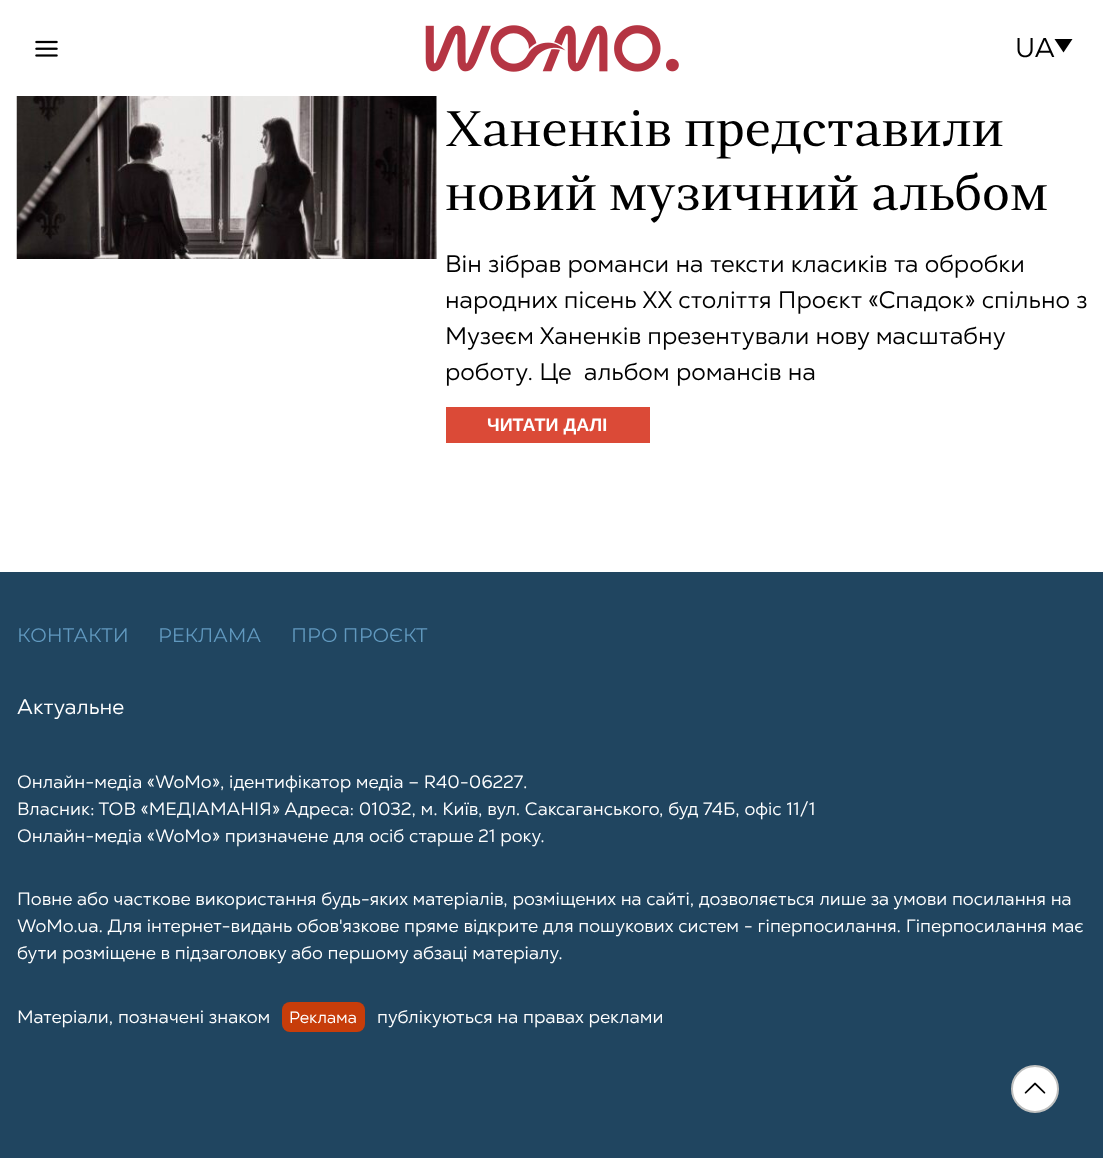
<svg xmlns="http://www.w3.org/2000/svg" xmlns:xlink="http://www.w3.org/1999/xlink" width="1103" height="1158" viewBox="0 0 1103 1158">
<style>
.cls-1{font:27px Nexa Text;fill:#000000}
.cls-2{font:49.5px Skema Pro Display;fill:#000000}
.cls-3{font:24px Nexa Text;fill:#000000}
.cls-4{font:bold 18px Liberation Sans;fill:#ffffff}
.cls-5{font:19.5px Montserrat;fill:#6199bf}
.cls-6{font:21px Nexa Text;fill:#ffffff}
.cls-7{font:18px Nexa Text;fill:#ffffff}
.cls-8{font:16.5px Nexa Text;fill:#ffffff}
</style>
<rect width="100%" height="100%" fill="#ffffff"/>
<image xlink:href="image0.png" x="35" y="40" width="23" height="17"/>
<image xlink:href="image1.png" x="425" y="25" width="254" height="47"/>
<path fill="#000000" d="M1054.5 39H1072.5L1063.5 52.5Z"/>
<image xlink:href="image2.png" x="16" y="96" width="421" height="163"/>
<rect fill="#db4a37" x="446" y="407" width="204" height="36"/>
<rect fill="#204560" x="0" y="572" width="1103" height="586"/>
<rect fill="#c73d0a" x="282" y="1002" width="83" height="30" rx="8"/>
<circle fill="#ffffff" stroke="#c0c1c0" stroke-width="2" cx="1035" cy="1089" r="23"/>
<image xlink:href="image3.png" x="1024" y="1082" width="22" height="12"/>
<text class="cls-1" x="1015" y="57">UA</text>
<text class="cls-2"><tspan x="445" y="146">Ханенків представили</tspan><tspan x="445" y="210">новий музичний альбом</tspan></text>
<text class="cls-3" xml:space="preserve"><tspan x="445" y="272">Він зібрав романси на тексти класиків та обробки</tspan><tspan x="445" y="308">народних пісень ХХ століття Проєкт «Спадок» спільно з</tspan><tspan x="445" y="344">Музеєм Ханенків презентували нову масштабну</tspan><tspan x="445" y="380">роботу. Це  альбом романсів на</tspan></text>
<text class="cls-4" x="487" y="431">ЧИТАТИ ДАЛІ</text>
<text class="cls-5" x="17" y="642">КОНТАКТИ</text>
<text class="cls-5" x="158" y="642">РЕКЛАМА</text>
<text class="cls-5" x="291" y="642">ПРО ПРОЄКТ</text>
<text class="cls-6" x="17" y="714">Актуальне</text>
<text class="cls-7"><tspan x="17" y="788">Онлайн-медіа «WoMo», ідентифікатор медіа – R40-06227.</tspan><tspan x="17" y="815">Власник: ТОВ «МЕДІАМАНІЯ» Адреса: 01032, м. Київ, вул. Саксаганського, буд 74Б, офіс 11/1</tspan><tspan x="17" y="842">Онлайн-медіа «WoMo» призначене для осіб старше 21 року.</tspan></text>
<text class="cls-7"><tspan x="17" y="905">Повне або часткове використання будь-яких матеріалів, розміщених на сайті, дозволяється лише за умови посилання на</tspan><tspan x="17" y="932">WoMo.ua. Для інтернет-видань обов'язкове пряме відкрите для пошукових систем - гіперпосилання. Гіперпосилання має</tspan><tspan x="17" y="959">бути розміщене в підзаголовку або першому абзаці матеріалу.</tspan></text>
<text class="cls-7" x="17" y="1023">Матеріали, позначені знаком</text>
<text class="cls-8" x="289" y="1023">Реклама</text>
<text class="cls-7" x="377" y="1023">публікуються на правах реклами</text>
</svg>
